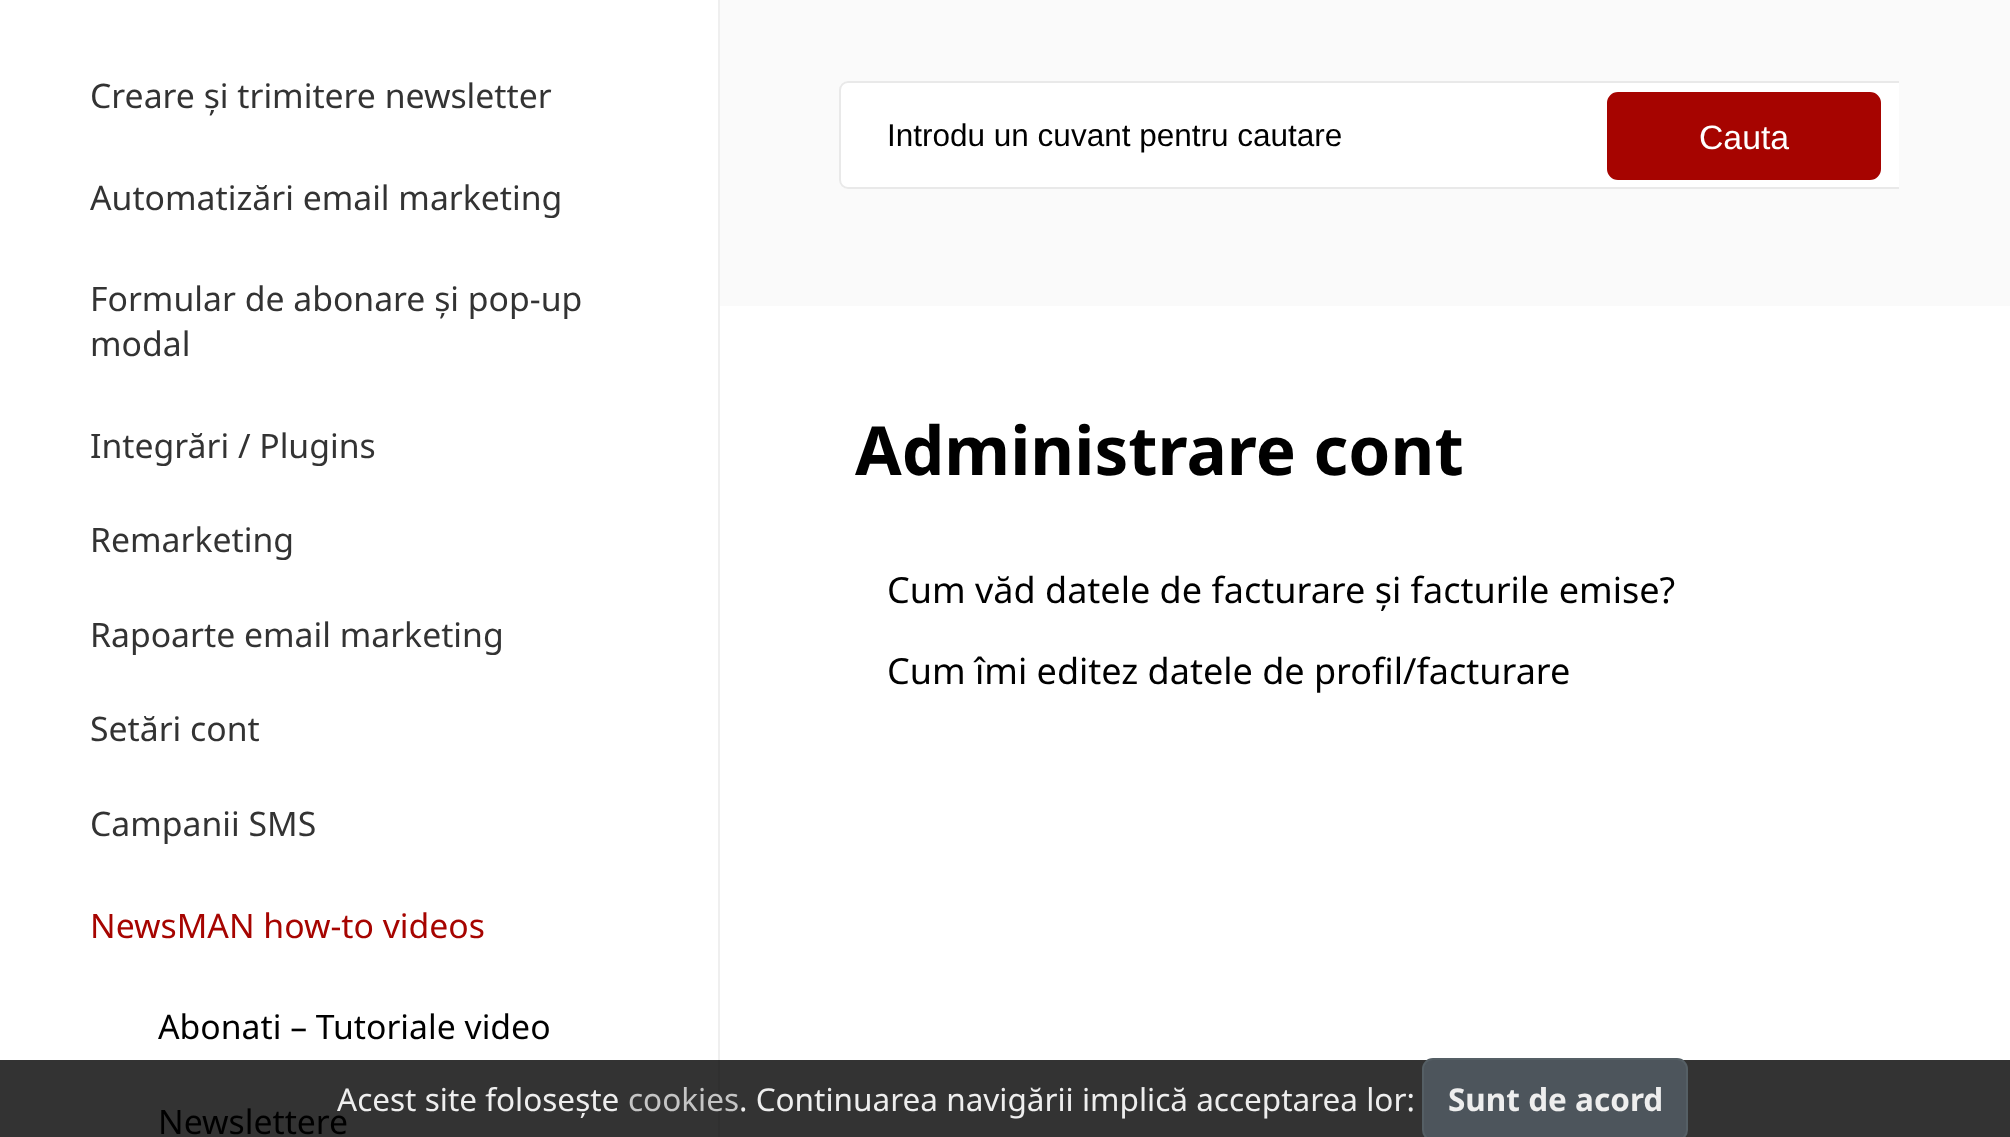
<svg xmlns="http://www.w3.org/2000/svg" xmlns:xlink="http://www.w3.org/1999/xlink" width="2010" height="1137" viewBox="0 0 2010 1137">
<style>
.cls-1{font:33.75px Noto Sans;fill:#333333}
.cls-2{font:33.75px Noto Sans;fill:#a60400}
.cls-3{font:33.75px Noto Sans;fill:#000000}
.cls-4{font:31.5px Liberation Sans;fill:#000000}
.cls-5{font:33.75px Liberation Sans;fill:#ffffff}
.cls-6{font:bold 67.5px Noto Sans;fill:#000000}
.cls-7{font:36px Noto Sans;fill:#000000}
.cls-8{font:31.5px Noto Sans;fill:#eeeeee}
.cls-9{font:31.5px Noto Sans;fill:#c5c5c5}
.cls-10{font:bold 31.5px Noto Sans;fill:#eeeeee}
</style>
<defs>
<clipPath id="clip1"><rect x="833" y="81" width="1066" height="108"/></clipPath>
</defs>
<rect width="100%" height="100%" fill="#ffffff"/>
<rect fill="#333333" x="0" y="1060" width="2010" height="77"/>
<rect fill="#efefef" x="718" y="0" width="2" height="1060"/>
<rect fill="#303030" x="718" y="1060" width="2" height="77"/>
<rect fill="#fafafa" x="720" y="0" width="1290" height="306"/>
<path fill="#ffffff" d="M848 81H1899V189H848C843 189 839 185 839 180V90C839 85 843 81 848 81Z"/>
<g clip-path="url(#clip1)">
<rect fill="none" stroke="#e9e9e9" stroke-width="2" x="840" y="82" width="1096" height="106" rx="8"/>
</g>
<rect fill="#a60400" stroke="#a60400" stroke-width="2" x="1608" y="93" width="272" height="86" rx="10"/>
<rect fill="#4d555c" stroke="#555f65" stroke-width="2" x="1423" y="1059" width="264" height="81" rx="10"/>
<text class="cls-1" x="90" y="108">Creare și trimitere newsletter</text>
<text class="cls-1" x="90" y="210">Automatizări email marketing</text>
<text class="cls-1"><tspan x="90" y="311">Formular de abonare și pop-up</tspan><tspan x="90" y="356">modal</tspan></text>
<text class="cls-1" x="90" y="458">Integrări / Plugins</text>
<text class="cls-1" x="90" y="552">Remarketing</text>
<text class="cls-1" x="90" y="647">Rapoarte email marketing</text>
<text class="cls-1" x="90" y="741">Setări cont</text>
<text class="cls-1" x="90" y="836">Campanii SMS</text>
<text class="cls-2" x="90" y="938">NewsMAN how-to videos</text>
<text class="cls-3" x="158" y="1039">Abonati – Tutoriale video</text>
<text class="cls-3" x="158" y="1134">Newslettere</text>
<text class="cls-4" x="887" y="146">Introdu un cuvant pentru cautare</text>
<text class="cls-5" x="1699" y="149">Cauta</text>
<text class="cls-6" x="855" y="475">Administrare cont</text>
<text class="cls-7" x="887" y="603">Cum văd datele de facturare și facturile emise?</text>
<text class="cls-7" x="887" y="684">Cum îmi editez datele de profil/facturare</text>
<text class="cls-8" x="337" y="1111">Acest site folosește</text>
<text class="cls-9" x="628" y="1111">cookies</text>
<text class="cls-8" x="739" y="1111">. Continuarea navigării implică acceptarea lor:</text>
<text class="cls-10" x="1448" y="1111">Sunt de acord</text>
</svg>
